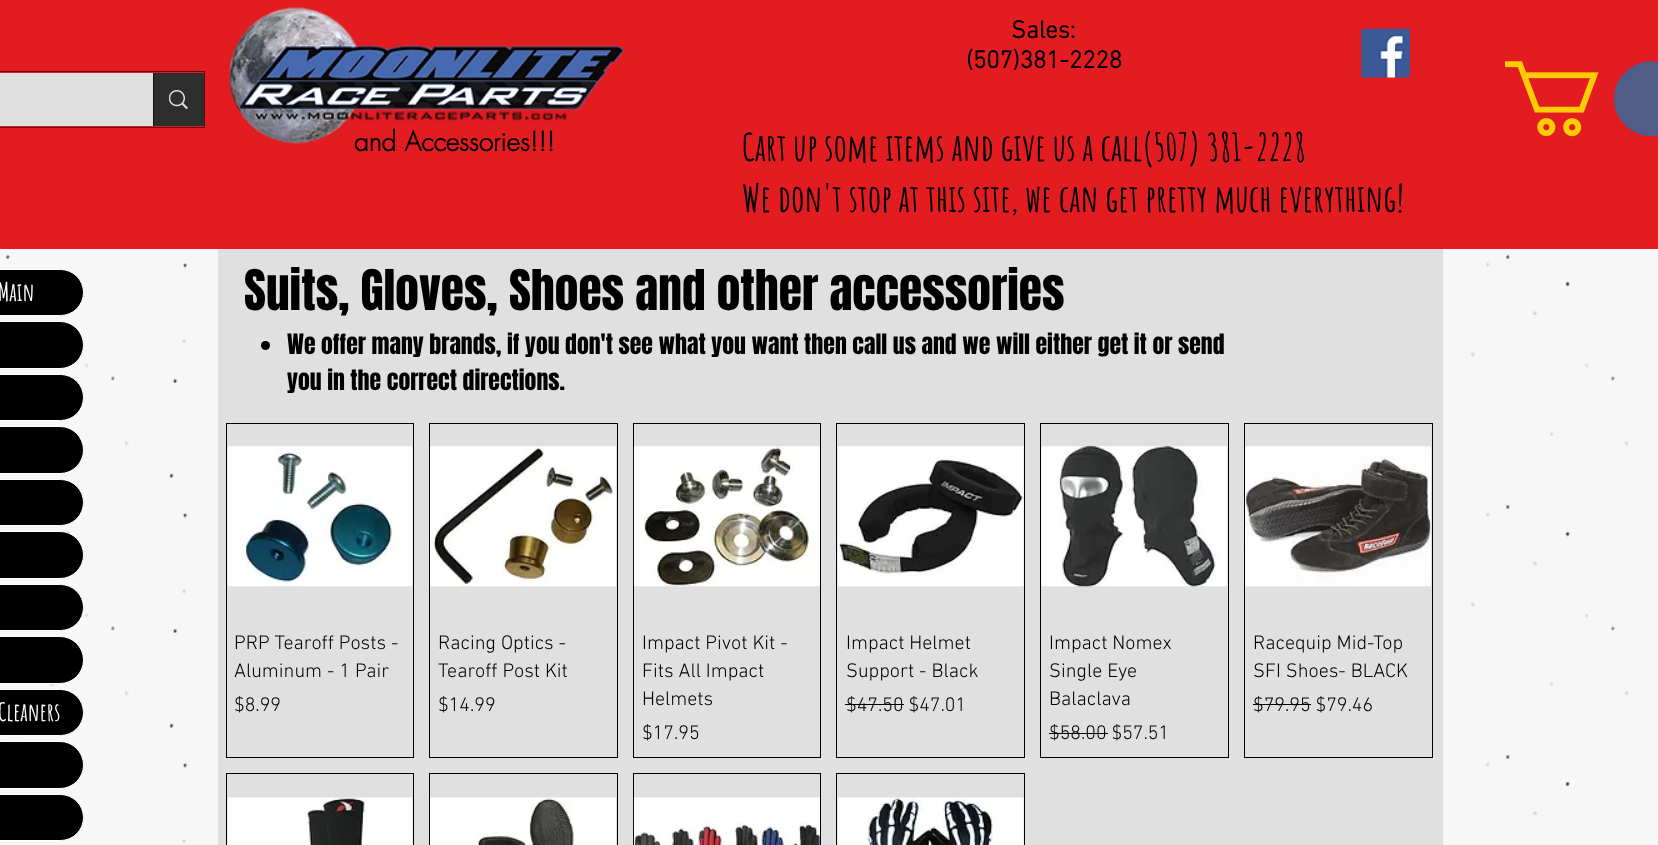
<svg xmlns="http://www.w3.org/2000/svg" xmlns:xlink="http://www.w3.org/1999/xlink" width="1658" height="845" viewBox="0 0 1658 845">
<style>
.cls-1{font:bold 25px 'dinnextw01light';fill:#000000}
.cls-2{font:bold 26.25px futura;fill:#000000}
.cls-3{font:bold 37.5px Amatic SC;fill:#000000}
.cls-4{font:bold 25px Amatic SC;fill:#ffffff}
.cls-5{font:47.5px Anton;fill:#000000}
.cls-6{font:23.75px Anton;fill:#000000}
.cls-7{font:300 20px 'dinnextw01light';fill:#000000}
</style>
<rect width="100%" height="100%" fill="#f7f7f7"/>
<rect fill="#e21c21" x="0" y="0" width="1658" height="249"/>
<image xlink:href="image0.png" x="228" y="7" width="397" height="137"/>
<image xlink:href="image1.png" x="1361" y="28" width="49" height="50"/>
<rect fill="none" stroke="#5a0b0d" x="-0.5" y="71.5" width="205" height="56"/>
<rect fill="#e0e0e0" x="0" y="73" width="153" height="53"/>
<rect fill="#2d2d2d" x="154" y="73" width="50" height="53"/>
<rect fill="#121212" x="153" y="73" width="1" height="53"/>
<image xlink:href="image2.png" x="169" y="90" width="19" height="19"/>
<image xlink:href="image3.png" x="1505" y="61" width="153" height="76"/>
<image xlink:href="image14.png" x="6" y="254" width="1623" height="590"/>
<rect fill="#000000" stroke="#ffffff" x="-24.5" y="269.5" width="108" height="46" rx="23"/>
<rect fill="#000000" stroke="#ffffff" x="-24.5" y="321.5" width="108" height="47" rx="23.5"/>
<rect fill="#000000" stroke="#ffffff" x="-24.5" y="374.5" width="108" height="46" rx="23"/>
<rect fill="#000000" stroke="#ffffff" x="-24.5" y="426.5" width="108" height="47" rx="23.5"/>
<rect fill="#000000" stroke="#ffffff" x="-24.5" y="479.5" width="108" height="46" rx="23"/>
<rect fill="#000000" stroke="#ffffff" x="-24.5" y="531.5" width="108" height="47" rx="23.5"/>
<rect fill="#000000" stroke="#ffffff" x="-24.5" y="584.5" width="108" height="46" rx="23"/>
<rect fill="#000000" stroke="#ffffff" x="-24.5" y="636.5" width="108" height="47" rx="23.5"/>
<rect fill="#000000" stroke="#ffffff" x="-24.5" y="689.5" width="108" height="46" rx="23"/>
<rect fill="#000000" stroke="#ffffff" x="-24.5" y="741.5" width="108" height="47" rx="23.5"/>
<rect fill="#000000" stroke="#ffffff" x="-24.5" y="794.5" width="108" height="46" rx="23"/>
<rect fill="#e0e0e0" x="218" y="249" width="1225" height="596"/>
<circle fill="#000000" cx="265.5" cy="345.5" r="4.5"/>
<rect fill="none" stroke="#000000" x="226.5" y="423.5" width="187" height="334"/>
<image xlink:href="image4.png" x="227" y="446" width="186" height="141"/>
<rect fill="none" stroke="#000000" x="429.5" y="423.5" width="188" height="334"/>
<image xlink:href="image5.png" x="430" y="446" width="186" height="141"/>
<rect fill="none" stroke="#000000" x="633.5" y="423.5" width="187" height="334"/>
<image xlink:href="image6.png" x="633" y="446" width="187" height="141"/>
<rect fill="none" stroke="#000000" x="836.5" y="423.5" width="188" height="334"/>
<image xlink:href="image7.png" x="837" y="446" width="187" height="141"/>
<rect fill="#000000" x="845" y="704" width="59" height="1"/>
<rect fill="none" stroke="#000000" x="1040.5" y="423.5" width="188" height="334"/>
<image xlink:href="image8.png" x="1041" y="446" width="187" height="141"/>
<rect fill="#000000" x="1049" y="733" width="59" height="1"/>
<rect fill="none" stroke="#000000" x="1244.5" y="423.5" width="188" height="334"/>
<image xlink:href="image9.png" x="1245" y="446" width="186" height="141"/>
<rect fill="#000000" x="1253" y="704" width="58" height="1"/>
<rect fill="none" stroke="#000000" x="226.5" y="773.5" width="187" height="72"/>
<image xlink:href="image10.png" x="227" y="797" width="186" height="48"/>
<rect fill="none" stroke="#000000" x="429.5" y="773.5" width="188" height="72"/>
<image xlink:href="image11.png" x="430" y="797" width="186" height="48"/>
<rect fill="none" stroke="#000000" x="633.5" y="773.5" width="187" height="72"/>
<image xlink:href="image12.png" x="633" y="797" width="187" height="48"/>
<rect fill="none" stroke="#000000" x="836.5" y="773.5" width="188" height="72"/>
<image xlink:href="image13.png" x="837" y="797" width="187" height="48"/>
<text class="cls-1" x="1011" y="38">Sales:</text>
<text class="cls-1" x="966" y="68">(507)381-2228</text>
<text class="cls-2" x="354" y="151">and Accessories!!!</text>
<text class="cls-3"><tspan x="742" y="161">Cart up some items and give us a call(507) 381-2228</tspan><tspan x="742" y="212">We don't stop at this site, we can get pretty much everything!</tspan></text>
<text class="cls-4" x="-2" y="301">Main</text>
<text class="cls-4" x="-2" y="721">Cleaners</text>
<text class="cls-5" x="244" y="310">Suits, Gloves, Shoes and other accessories</text>
<text class="cls-6"><tspan x="287" y="354">We offer many brands, if you don't see what you want then call us and we will either get it or send</tspan><tspan x="287" y="390">you in the correct directions.</tspan></text>
<text class="cls-7"><tspan x="234" y="649">PRP Tearoff Posts -</tspan><tspan x="234" y="677">Aluminum - 1 Pair</tspan><tspan x="234" y="711">$8.99</tspan></text>
<text class="cls-7"><tspan x="438" y="649">Racing Optics -</tspan><tspan x="438" y="677">Tearoff Post Kit</tspan><tspan x="438" y="711">$14.99</tspan></text>
<text class="cls-7"><tspan x="642" y="649">Impact Pivot Kit -</tspan><tspan x="642" y="677">Fits All Impact</tspan><tspan x="642" y="705">Helmets</tspan><tspan x="642" y="739">$17.95</tspan></text>
<text class="cls-7"><tspan x="846" y="649">Impact Helmet</tspan><tspan x="846" y="677">Support - Black</tspan><tspan x="846" y="711">$47.50 $47.01</tspan></text>
<text class="cls-7"><tspan x="1049" y="649">Impact Nomex</tspan><tspan x="1049" y="677">Single Eye</tspan><tspan x="1049" y="705">Balaclava</tspan><tspan x="1049" y="739">$58.00 $57.51</tspan></text>
<text class="cls-7"><tspan x="1253" y="649">Racequip Mid-Top</tspan><tspan x="1253" y="677">SFI Shoes- BLACK</tspan><tspan x="1253" y="711">$79.95 $79.46</tspan></text>
</svg>
